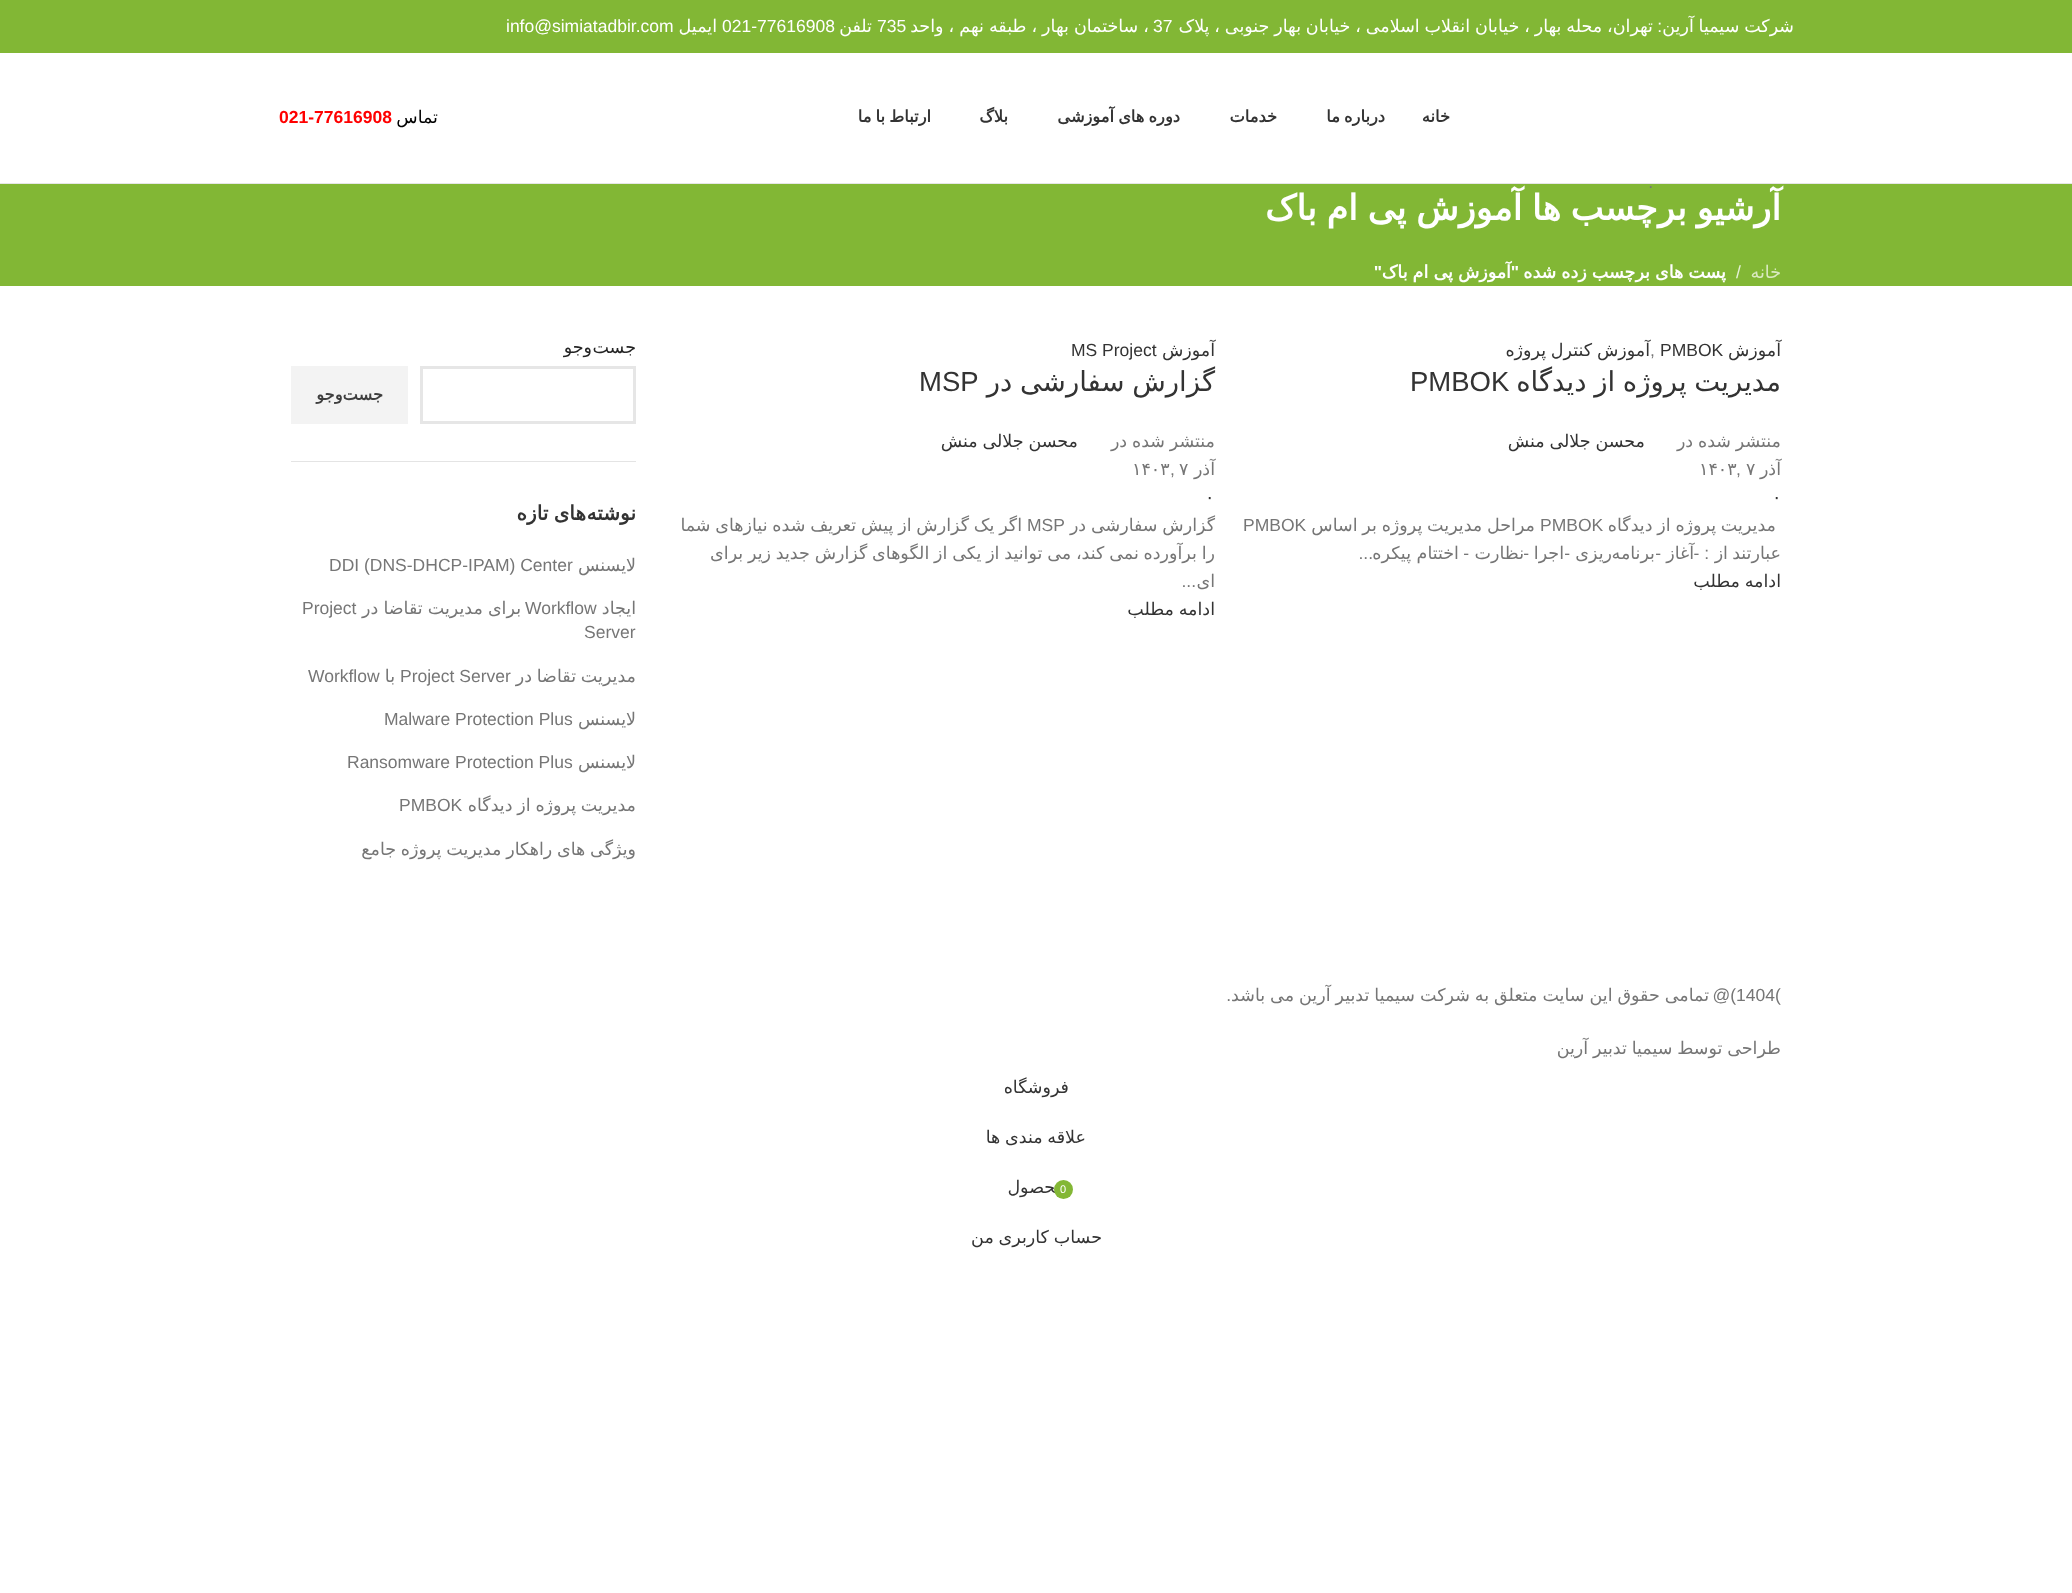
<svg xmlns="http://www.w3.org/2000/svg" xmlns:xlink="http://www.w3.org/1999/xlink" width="2072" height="1593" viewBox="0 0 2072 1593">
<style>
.cls-1{font:17.5px DejaVu Sans;direction:rtl;fill:#ffffff}
.cls-2{font:17.5px Liberation Sans;fill:#ffffff}
.cls-3{font:17.5px Liberation Sans;direction:rtl;fill:#ffffff}
.cls-4{font:bold 16.25px DejaVu Sans;direction:rtl;fill:#333333}
.cls-5{font:17.5px DejaVu Sans;direction:rtl;fill:#000000}
.cls-6{font:bold 17.5px Liberation Sans;fill:#ff0000}
.cls-7{font:bold 35px DejaVu Sans;direction:rtl;fill:#ffffff}
.cls-8{font:17.5px DejaVu Sans;direction:rtl;fill:#dae9c2}
.cls-9{font:17.5px Liberation Sans;fill:#e6f1d7}
.cls-10{font:bold 17.5px DejaVu Sans;direction:rtl;fill:#ffffff}
.cls-11{font:bold 17.5px Liberation Sans;direction:rtl;fill:#ffffff}
.cls-12{font:17.5px DejaVu Sans;direction:rtl;fill:#333333}
.cls-13{font:17.5px Liberation Sans;fill:#333333}
.cls-14{font:17.5px Liberation Sans;fill:#767676}
.cls-15{font:27.5px DejaVu Sans;direction:rtl;fill:#333333}
.cls-16{font:27.5px Liberation Sans;fill:#333333}
.cls-17{font:17.5px DejaVu Sans;direction:rtl;fill:#767676}
.cls-18{font:17.5px DejaVu Sans;fill:#767676}
.cls-19{font:17.5px DejaVu Sans;fill:#333333}
.cls-20{font:17.5px Liberation Sans;direction:rtl;fill:#767676}
.cls-21{font:17.5px DejaVu Sans;direction:rtl;fill:#242424}
.cls-22{font:bold 16.25px DejaVu Sans;direction:rtl;fill:#3e3e3e}
.cls-23{font:bold 20px DejaVu Sans;direction:rtl;fill:#333333}
.cls-24{font:11px Liberation Sans;fill:#ffffff}
</style>
<rect width="100%" height="100%" fill="#ffffff"/>
<rect fill="#82b735" x="0" y="0" width="2072" height="53"/>
<rect fill="#e6e6e6" x="0" y="183" width="2072" height="1"/>
<rect fill="#82b735" x="0" y="184" width="2072" height="102"/>
<rect fill="#e4e4e4" x="291" y="461" width="345" height="1"/>
<rect fill="none" stroke="#e6e6e6" stroke-width="3" x="421.5" y="367.5" width="213" height="55"/>
<rect fill="#f3f3f3" x="291" y="366" width="117" height="58"/>
<text class="cls-1" x="1794" y="32" word-spacing="-0.7">شرکت سیمیا آرین</text>
<text class="cls-1" x="1653" y="32" word-spacing="-0.7">تهران، محله بهار ، خیابان انقلاب اسلامی ، خیابان بهار جنوبی ، پلاک</text>
<text class="cls-2" x="1153" y="32">37</text>
<text class="cls-1" x="1149" y="32" word-spacing="-0.5">، ساختمان بهار ، طبقه نهم ، واحد</text>
<text class="cls-2" x="877" y="32">735</text>
<text class="cls-1" x="872" y="32">تلفن</text>
<text class="cls-2" x="722" y="32">021-77616908</text>
<text class="cls-1" x="717" y="32">ایمیل</text>
<text class="cls-2" x="506" y="32">info@simiatadbir.com</text>
<text class="cls-3" x="1662" y="32">:</text>
<text class="cls-4" x="1450" y="122">خانه</text>
<text class="cls-4" x="1385" y="122" word-spacing="-1">درباره ما</text>
<text class="cls-4" x="1277" y="122">خدمات</text>
<text class="cls-4" x="1180" y="122" word-spacing="-1">دوره های آموزشی</text>
<text class="cls-4" x="1008" y="122">بلاگ</text>
<text class="cls-4" x="931" y="122" word-spacing="-1">ارتباط با ما</text>
<text class="cls-5" x="438" y="123">تماس</text>
<text class="cls-6" x="279" y="123">021-77616908</text>
<text class="cls-7" x="1781" y="220" word-spacing="-1.5">آرشیو برچسب ها آموزش پی ام باک</text>
<text class="cls-8" x="1781" y="278">خانه</text>
<text class="cls-9" x="1736" y="278">/</text>
<text class="cls-10" x="1726" y="278" word-spacing="-0.5">پست های برچسب زده شده</text>
<text class="cls-10" x="1511" y="278" word-spacing="-0.5">آموزش پی ام باک</text>
<text class="cls-11" x="1519" y="278">"</text>
<text class="cls-11" x="1382" y="278">"</text>
<text class="cls-12" x="1781" y="356">آموزش</text>
<text class="cls-13" x="1660" y="356">PMBOK</text>
<text class="cls-14" x="1650" y="356">,</text>
<text class="cls-12" x="1650" y="356" word-spacing="-0.75">آموزش کنترل پروژه</text>
<text class="cls-15" x="1781" y="391" word-spacing="-1">مدیریت پروژه از دیدگاه</text>
<text class="cls-16" x="1410" y="391">PMBOK</text>
<text class="cls-17" x="1781" y="447" word-spacing="-0.75">منتشر شده در</text>
<text class="cls-12" x="1645" y="447" word-spacing="-0.75">محسن جلالی منش</text>
<text class="cls-17" x="1781" y="475">آذر</text>
<text class="cls-18" x="1746" y="475">۷</text>
<text class="cls-18" x="1699" y="475">۱۴۰۳</text>
<text class="cls-14" x="1736" y="475">,</text>
<text class="cls-19" x="1772" y="503">۰</text>
<text class="cls-17" x="1776" y="531" word-spacing="-0.75">مدیریت پروژه از دیدگاه</text>
<text class="cls-14" x="1540" y="531">PMBOK</text>
<text class="cls-17" x="1535" y="531" word-spacing="-0.75">مراحل مدیریت پروژه بر اساس</text>
<text class="cls-14" x="1243" y="531">PMBOK</text>
<text class="cls-17" x="1781" y="559">عبارتند</text>
<text class="cls-17" x="1728" y="559">از</text>
<text class="cls-20" x="1709" y="559">: -</text>
<text class="cls-17" x="1694" y="559">آغاز</text>
<text class="cls-20" x="1661" y="559">-</text>
<text class="cls-17" x="1655" y="559">برنامه</text>
<text class="cls-17" x="1612" y="559">ریزی</text>
<text class="cls-20" x="1570" y="559">-</text>
<text class="cls-17" x="1564" y="559">اجرا</text>
<text class="cls-20" x="1529" y="559">-</text>
<text class="cls-17" x="1524" y="559">نظارت</text>
<text class="cls-20" x="1469" y="559">-</text>
<text class="cls-17" x="1459" y="559">اختتام</text>
<text class="cls-17" x="1411" y="559">پیکره</text>
<text class="cls-20" x="1373" y="559">...</text>
<text class="cls-12" x="1781" y="587" word-spacing="-0.75">ادامه مطلب</text>
<text class="cls-12" x="1215" y="356">آموزش</text>
<text class="cls-13" x="1071" y="356">MS Project</text>
<text class="cls-15" x="1215" y="391" word-spacing="-1">گزارش سفارشی در</text>
<text class="cls-16" x="919" y="391">MSP</text>
<text class="cls-17" x="1215" y="447" word-spacing="-0.75">منتشر شده در</text>
<text class="cls-12" x="1078" y="447" word-spacing="-0.75">محسن جلالی منش</text>
<text class="cls-17" x="1215" y="475">آذر</text>
<text class="cls-18" x="1179" y="475">۷</text>
<text class="cls-18" x="1132" y="475">۱۴۰۳</text>
<text class="cls-14" x="1170" y="475">,</text>
<text class="cls-19" x="1205" y="503">۰</text>
<text class="cls-17" x="1215" y="531" word-spacing="-0.75">گزارش سفارشی در</text>
<text class="cls-14" x="1027" y="531">MSP</text>
<text class="cls-17" x="1022" y="531" word-spacing="-0.75">اگر یک گزارش از پیش تعریف شده نیازهای شما</text>
<text class="cls-17"><tspan x="1215" y="559" word-spacing="-0.75">را برآورده نمی کند، می توانید از یکی از الگوهای گزارش جدید زیر برای</tspan><tspan x="1215" y="587">ای</tspan></text>
<text class="cls-20" x="1196" y="587">...</text>
<text class="cls-12" x="1215" y="615" word-spacing="-0.75">ادامه مطلب</text>
<text class="cls-21" x="636" y="353">جست</text>
<text class="cls-21" x="592" y="353">وجو</text>
<text class="cls-22" x="383" y="400">جست‌وجو</text>
<text class="cls-23" x="636" y="520">نوشته</text>
<text class="cls-23" x="586" y="520" word-spacing="-1">های تازه</text>
<text class="cls-17" x="636" y="571">لایسنس</text>
<text class="cls-14" x="329" y="571">DDI (DNS-DHCP-IPAM) Center</text>
<text class="cls-17" x="636" y="614">ایجاد</text>
<text class="cls-14" x="525" y="614">Workflow</text>
<text class="cls-17" x="521" y="614" word-spacing="-0.5">برای مدیریت تقاضا در</text>
<text class="cls-14" x="302" y="614">Project</text>
<text class="cls-14" x="584" y="638">Server</text>
<text class="cls-17" x="636" y="682" word-spacing="-0.75">مدیریت تقاضا در</text>
<text class="cls-14" x="400" y="682">Project Server</text>
<text class="cls-17" x="395" y="682">با</text>
<text class="cls-14" x="308" y="682">Workflow</text>
<text class="cls-17" x="636" y="725">لایسنس</text>
<text class="cls-14" x="384" y="725">Malware Protection Plus</text>
<text class="cls-17" x="636" y="768">لایسنس</text>
<text class="cls-14" x="347" y="768">Ransomware Protection Plus</text>
<text class="cls-17" x="636" y="811" word-spacing="-0.75">مدیریت پروژه از دیدگاه</text>
<text class="cls-14" x="399" y="811">PMBOK</text>
<text class="cls-17" x="636" y="855" word-spacing="-0.75">ویژگی های راهکار مدیریت پروژه جامع</text>
<text class="cls-14" x="1736" y="1001">1404(</text>
<text class="cls-17" x="1709" y="1001" word-spacing="-0.6">تمامی حقوق این سایت متعلق به شرکت سیمیا تدبیر آرین می باشد</text>
<text class="cls-20" x="1736" y="1001">)@</text>
<text class="cls-20" x="1231" y="1001">.</text>
<text class="cls-17" x="1781" y="1054" word-spacing="-0.75">طراحی توسط سیمیا تدبیر آرین</text>
<text class="cls-20" x="1653" y="188">.</text>
<text class="cls-12" x="1069" y="1093">فروشگاه</text>
<text class="cls-12" x="1086" y="1143" word-spacing="-0.75">علاقه مندی ها</text>
<text class="cls-12" x="1065" y="1193">محصول</text>
<circle fill="#83b735" cx="1063.5" cy="1189.5" r="9.5"/>
<text class="cls-24" x="1060" y="1193">0</text>
<text class="cls-12" x="1102" y="1243" word-spacing="-0.75">حساب کاربری من</text>
</svg>
